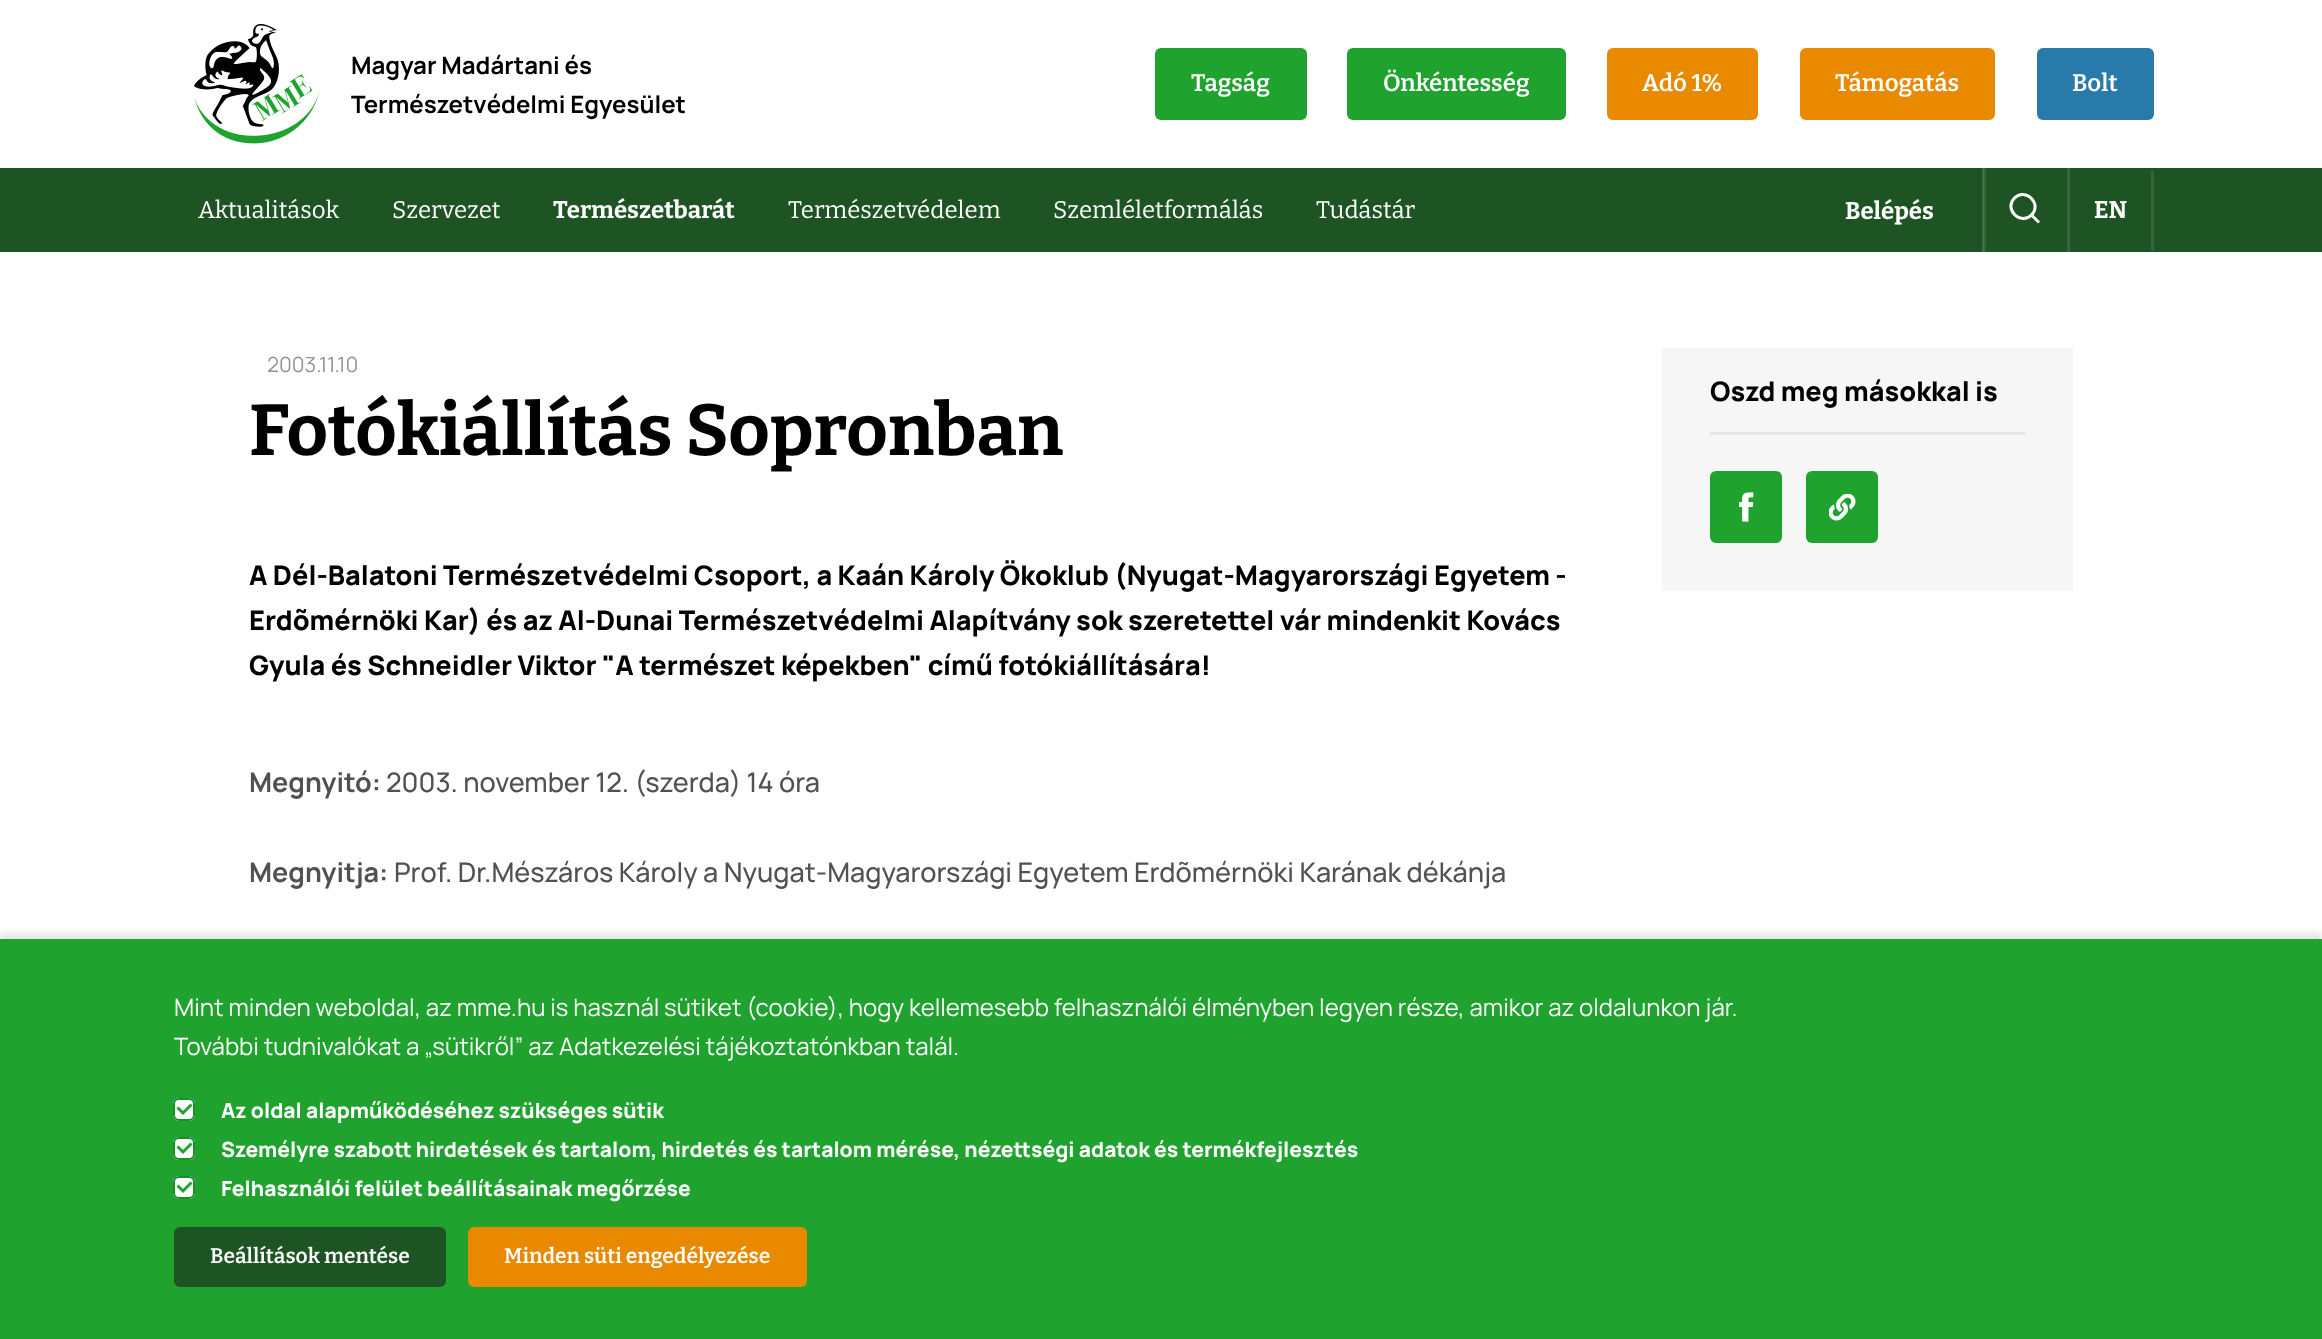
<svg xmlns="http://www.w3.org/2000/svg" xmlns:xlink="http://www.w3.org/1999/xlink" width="2322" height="1339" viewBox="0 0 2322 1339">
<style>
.cls-1{font:bold 24px Manrope;fill:#000000}
.cls-2{font:600 24px Bitter;fill:#ffffff}
.cls-3{font:24px Bitter;fill:#ffffff}
.cls-4{font:bold 24px Bitter;fill:#ffffff}
.cls-5{font:21px Manrope;fill:#949494}
.cls-6{font:bold 72px Bitter;fill:#000000}
.cls-7{font:800 27px Manrope;fill:#000000}
.cls-8{font:bold 27px Manrope;fill:#515151}
.cls-9{font:500 27px Manrope;fill:#515151}
.cls-10{font:24px Manrope;fill:#ffffff}
.cls-11{font:800 21px Manrope;fill:#ffffff}
.cls-12{font:600 21px Bitter;fill:#ffffff}
</style>
<rect width="100%" height="100%" fill="#ffffff"/>
<image xlink:href="image0.png" x="194" y="24" width="126" height="120"/>
<rect fill="#1fa22e" x="1155" y="48" width="152" height="72" rx="6"/>
<rect fill="#1fa22e" x="1347" y="48" width="219" height="72" rx="6"/>
<rect fill="#e98900" x="1607" y="48" width="151" height="72" rx="6"/>
<rect fill="#e98900" x="1800" y="48" width="195" height="72" rx="6"/>
<rect fill="#277aa9" x="2037" y="48" width="117" height="72" rx="6"/>
<rect fill="#1e5424" x="0" y="168" width="2322" height="84"/>
<rect fill="#35653a" x="1984" y="168" width="2" height="84"/>
<rect fill="#35653a" x="1982" y="168" width="1" height="84"/>
<rect fill="#49744e" x="1983" y="168" width="1" height="84"/>
<rect fill="#35653a" x="2067" y="168" width="3" height="84"/>
<path fill="none" stroke="#ffffff" stroke-width="3" d="M2014.5 198C2025.5 187 2042.5 204 2031.5 215C2020.5 226 2003.5 209 2014.5 198Z"/>
<path fill="#ffffff" d="M2029.5 215L2031.5 213L2040 221.5L2038 223.5Z"/>
<rect fill="#35653a" x="2151" y="171" width="3" height="80"/>
<rect fill="#f6f6f6" x="1662" y="348" width="411" height="243"/>
<rect fill="#e5e5e5" x="1710" y="432" width="315" height="3"/>
<rect fill="#1fa22e" x="1710" y="471" width="72" height="72" rx="6"/>
<image xlink:href="image1.png" x="1739" y="492" width="15" height="30"/>
<rect fill="#1fa22e" x="1806" y="471" width="72" height="72" rx="6"/>
<image xlink:href="image2.png" x="1829" y="494" width="27" height="27"/>
<rect fill="#000000" fill-opacity="0.1" filter="blur(3px)" x="0" y="933" width="2322" height="401"/>
<rect fill="#1fa22e" x="0" y="939" width="2322" height="400"/>
<rect fill="#0075ff" x="174" y="1098" width="20" height="20" rx="3"/>
<rect fill="#ffffff" x="173" y="1098" width="22" height="23" rx="6"/>
<path fill="none" stroke="#1fa22e" stroke-width="3" d="M177.5 1107.5L183 1113L191.5 1104.5"/>
<rect fill="none" stroke="#179325" stroke-width="2" x="174" y="1099" width="20" height="21" rx="5"/>
<rect fill="#0075ff" x="174" y="1137" width="20" height="20" rx="3"/>
<rect fill="#ffffff" x="173" y="1137" width="22" height="23" rx="6"/>
<path fill="none" stroke="#1fa22e" stroke-width="3" d="M177.5 1146.5L183 1152L191.5 1143.5"/>
<rect fill="none" stroke="#179325" stroke-width="2" x="174" y="1138" width="20" height="21" rx="5"/>
<rect fill="#0075ff" x="174" y="1176" width="20" height="20" rx="3"/>
<rect fill="#ffffff" x="173" y="1176" width="22" height="23" rx="6"/>
<path fill="none" stroke="#1fa22e" stroke-width="3" d="M177.5 1185.5L183 1191L191.5 1182.5"/>
<rect fill="none" stroke="#179325" stroke-width="2" x="174" y="1177" width="20" height="21" rx="5"/>
<rect fill="#1e5424" x="174" y="1227" width="272" height="60" rx="6"/>
<rect fill="#e98900" x="468" y="1227" width="339" height="60" rx="6"/>
<text class="cls-1"><tspan x="351" y="74">Magyar Madártani és</tspan><tspan x="351" y="113">Természetvédelmi Egyesület</tspan></text>
<text class="cls-2" x="1191" y="91">Tagság</text>
<text class="cls-2" x="1383" y="91">Önkéntesség</text>
<text class="cls-2" x="1642" y="91">Adó 1%</text>
<text class="cls-2" x="1835" y="91">Támogatás</text>
<text class="cls-2" x="2072" y="91">Bolt</text>
<text class="cls-3" x="198" y="218">Aktualitások</text>
<text class="cls-3" x="392" y="218">Szervezet</text>
<text class="cls-4" x="553" y="218">Természetbarát</text>
<text class="cls-3" x="788" y="218">Természetvédelem</text>
<text class="cls-3" x="1053" y="218">Szemléletformálás</text>
<text class="cls-3" x="1316" y="218">Tudástár</text>
<text class="cls-4" x="1845" y="219">Belépés</text>
<text class="cls-4" x="2094" y="218">EN</text>
<text class="cls-5" x="267" y="372">2003.11.10</text>
<text class="cls-6" x="249" y="455">Fotókiállítás Sopronban</text>
<text class="cls-7"><tspan x="249" y="585">A Dél-Balatoni Természetvédelmi Csoport, a Kaán Károly Ökoklub (Nyugat-Magyarországi Egyetem -</tspan><tspan x="249" y="630">Erdõmérnöki Kar) és az Al-Dunai Természetvédelmi Alapítvány sok szeretettel vár mindenkit Kovács</tspan><tspan x="249" y="675">Gyula és Schneidler Viktor "A természet képekben" című fotókiállítására!</tspan></text>
<text class="cls-8" x="249" y="792">Megnyitó:</text>
<text class="cls-9" x="386" y="792">2003. november 12. (szerda) 14 óra</text>
<text class="cls-8" x="249" y="882">Megnyitja:</text>
<text class="cls-9" x="394" y="882">Prof. Dr.Mészáros Károly a Nyugat-Magyarországi Egyetem Erdõmérnöki Karának dékánja</text>
<text class="cls-7" x="1710" y="401">Oszd meg másokkal is</text>
<text class="cls-10"><tspan x="174" y="1016">Mint minden weboldal, az mme.hu is használ sütiket (cookie), hogy kellemesebb felhasználói élményben legyen része, amikor az oldalunkon jár.</tspan><tspan x="174" y="1055">További tudnivalókat a „sütikről” az Adatkezelési tájékoztatónkban talál.</tspan></text>
<text class="cls-11"><tspan x="221" y="1118">Az oldal alapműködéséhez szükséges sütik</tspan><tspan x="221" y="1157">Személyre szabott hirdetések és tartalom, hirdetés és tartalom mérése, nézettségi adatok és termékfejlesztés</tspan><tspan x="221" y="1196">Felhasználói felület beállításainak megőrzése</tspan></text>
<text class="cls-12" x="210" y="1263">Beállítások mentése</text>
<text class="cls-12" x="504" y="1263">Minden süti engedélyezése</text>
</svg>
